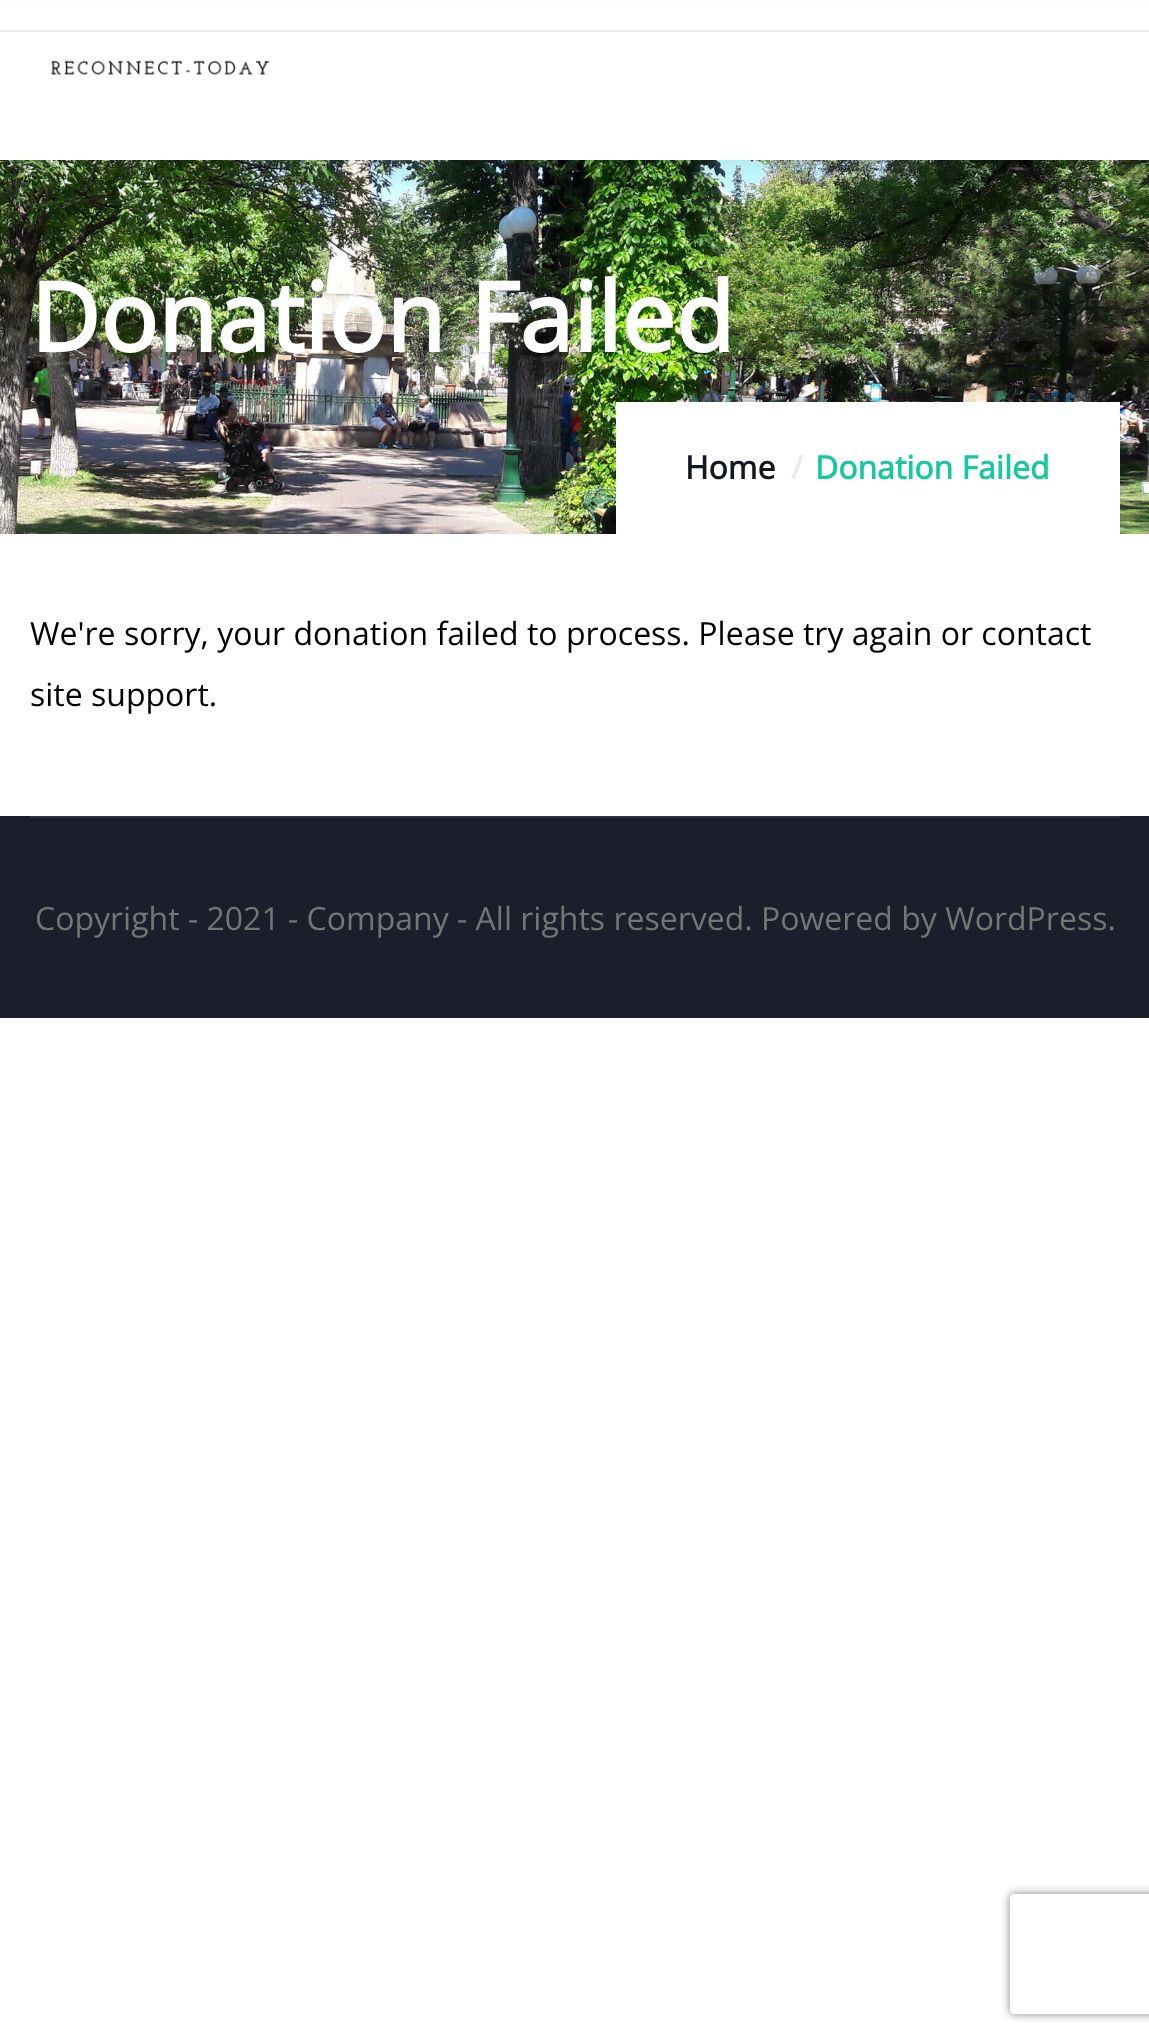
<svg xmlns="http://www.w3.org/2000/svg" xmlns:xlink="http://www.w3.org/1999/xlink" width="1149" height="2041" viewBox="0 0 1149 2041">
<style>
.cls-1{font:bold 96px Open Sans;fill:#ffffff}
.cls-2{font:bold 32px Open Sans;fill:#11161f}
.cls-3{font:bold 32px Open Sans;fill:#e5eeec}
.cls-4{font:bold 32px Open Sans;fill:#15c8a0}
.cls-5{font:32px Open Sans;fill:#000000}
.cls-6{font:32px Open Sans;fill:#707876}
</style>
<defs>
<clipPath id="clip1"><path d="M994 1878H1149V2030H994ZM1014 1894H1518C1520 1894 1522 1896 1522 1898V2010C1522 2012 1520 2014 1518 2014H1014C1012 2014 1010 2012 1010 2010V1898C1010 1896 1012 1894 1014 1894Z" clip-rule="evenodd"/></clipPath>
</defs>
<rect width="100%" height="100%" fill="#ffffff"/>
<image xlink:href="image1.png" x="0" y="160" width="1149" height="374"/>
<rect fill="#000000" fill-opacity="0.05" filter="blur(10px)" x="0" y="10" width="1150" height="160"/>
<rect fill="#ffffff" x="0" y="2" width="1149" height="158"/>
<rect fill="#e9e9ee" x="0" y="30" width="1149" height="2"/>
<image xlink:href="image0.png" x="51" y="60" width="219" height="16"/>
<rect fill="#ffffff" x="616" y="402" width="504" height="132"/>
<rect fill="#1b1e2b" x="0" y="816" width="1149" height="202"/>
<rect fill="#323540" x="30" y="816" width="1090" height="2"/>
<g clip-path="url(#clip1)">
<rect fill="#808080" filter="blur(5px)" x="1010" y="1894" width="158" height="120" rx="4"/>
</g>
<text class="cls-1" x="30" y="352">Donation Failed</text>
<text class="cls-2" x="685" y="479">Home</text>
<text class="cls-3" x="791" y="479">/</text>
<text class="cls-4" x="815" y="479">Donation Failed</text>
<text class="cls-5"><tspan x="30" y="645">We're sorry, your donation failed to process. Please try again or contact</tspan><tspan x="30" y="706">site support.</tspan></text>
<text class="cls-6" x="35" y="930">Copyright - 2021 - Company - All rights reserved. Powered by WordPress.</text>
</svg>
